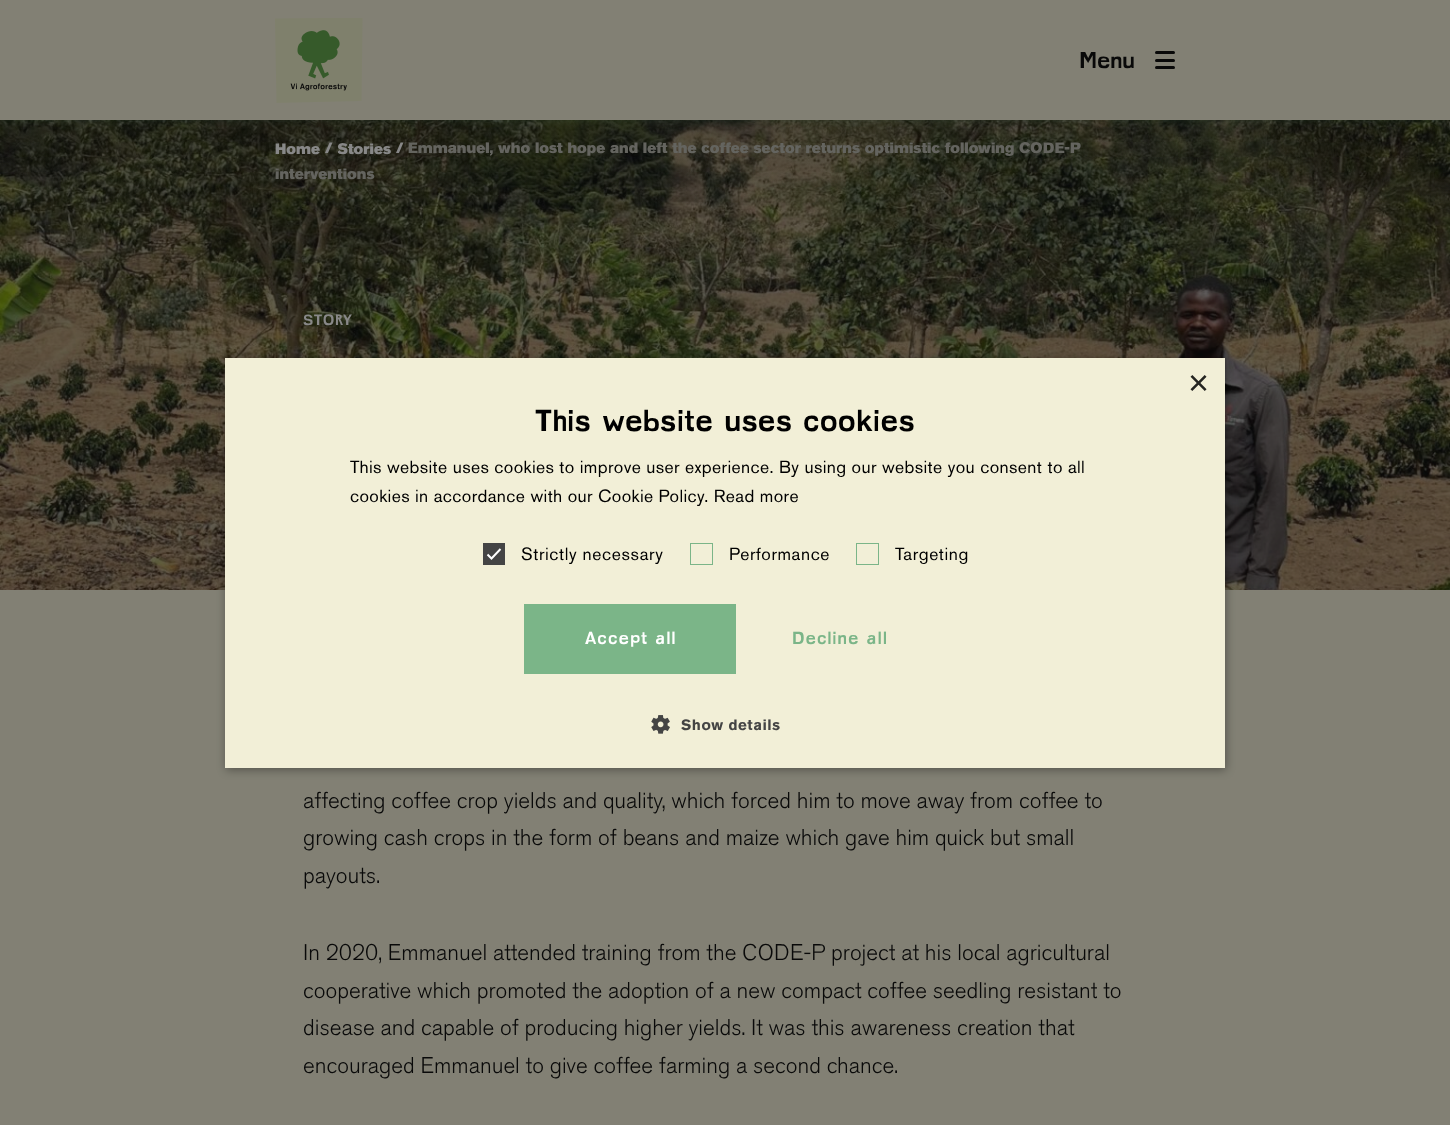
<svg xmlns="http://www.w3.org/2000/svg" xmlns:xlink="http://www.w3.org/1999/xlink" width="1450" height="1125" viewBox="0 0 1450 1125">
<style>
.cls-1{font:bold 22.5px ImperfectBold;fill:#090909}
.cls-2{font:900 15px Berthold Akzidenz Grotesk;fill:#888888}
.cls-3{font:900 15px Berthold Akzidenz Grotesk;fill:#64645f}
.cls-4{font:bold 15px ImperfectBold;letter-spacing:1px;fill:#888888}
.cls-5{font:300 22.5px Berthold Akzidenz Grotesk;fill:#090909}
.cls-6{font:36px Liberation Sans;fill:#242420}
.cls-7{font:bold 30px ImperfectBold;letter-spacing:0.5px;fill:#000000}
.cls-8{font:17.5px Berthold Akzidenz Grotesk;letter-spacing:0.38px;fill:#000000}
.cls-9{font:17.5px Berthold Akzidenz Grotesk;letter-spacing:0.6px;fill:#000000}
.cls-10{font:bold 17.5px ImperfectBold;letter-spacing:1.25px;fill:#ffffff}
.cls-11{font:bold 17.5px ImperfectBold;letter-spacing:1.25px;fill:#7bb588}
.cls-12{font:bold 15px Berthold Akzidenz Grotesk;letter-spacing:0.5px;fill:#444444}
</style>
<defs>
<linearGradient id="g1" gradientUnits="userSpaceOnUse" x1="726" y1="0" x2="726" y2="133"><stop offset="0" stop-color="#090909" stop-opacity="0.25"/><stop offset="1" stop-color="#090909" stop-opacity="0"/></linearGradient>
<linearGradient id="g2" gradientUnits="userSpaceOnUse" x1="725" y1="120" x2="725" y2="220"><stop offset="0" stop-color="#090909" stop-opacity="0.2"/><stop offset="1" stop-color="#090909" stop-opacity="0"/></linearGradient>
<clipPath id="clip1"><rect x="338" y="136" width="53" height="25"/></clipPath>
</defs>
<rect width="100%" height="100%" fill="#828074"/>
<image xlink:href="image1.png" x="0" y="120" width="1450" height="470"/>
<rect fill="url(#g1)" x="68" y="120" width="1039" height="2"/>
<rect fill="#090909" fill-opacity="0.3" x="0" y="120" width="1450" height="470"/>
<rect fill="url(#g2)" x="0" y="120" width="1450" height="85"/>
<rect fill="#36563d" fill-opacity="0.25" filter="blur(4px)" x="0" y="1" width="1450" height="120"/>
<rect fill="#828074" x="0" y="0" width="1450" height="120"/>
<image xlink:href="image0.png" x="275" y="18" width="88" height="85"/>
<rect fill="#090909" x="1155" y="51" width="20" height="3" rx="1.5"/>
<rect fill="#090909" x="1155" y="59" width="20" height="3" rx="1.5"/>
<rect fill="#090909" x="1155" y="66" width="20" height="3" rx="1.5"/>
<rect fill="#000000" fill-opacity="0.35" filter="blur(5px)" x="226" y="360" width="1000" height="410"/>
<rect fill="#f2efd7" x="225" y="358" width="1000" height="410"/>
<rect fill="#444444" x="483" y="543" width="22" height="22"/>
<path fill="none" stroke="#ffffff" stroke-width="2" d="M487.5 554.5L491.5 558.5L500.5 549"/>
<rect fill="none" stroke="#7bb588" x="690.5" y="543.5" width="22" height="21"/>
<rect fill="none" stroke="#7bb588" x="856.5" y="543.5" width="22" height="21"/>
<rect fill="#7bb588" x="524" y="604" width="212" height="70"/>
<image xlink:href="image2.png" x="651" y="715" width="19" height="19"/>
<text class="cls-1" x="1079" y="68">Menu</text>
<text class="cls-2" x="275" y="154">Home</text>
<text class="cls-2" x="325" y="153">/</text>
<g clip-path="url(#clip1)">
<text class="cls-2" x="337" y="154">Stories</text>
</g>
<text class="cls-2" x="396" y="153">/</text>
<text class="cls-3" x="408" y="153">Emmanuel, who lost hope and left the coffee sector returns optimistic following CODE-P</text>
<text class="cls-3" x="275" y="179">interventions</text>
<text class="cls-4" x="303" y="325">STORY</text>
<text class="cls-5"><tspan x="303" y="808">affecting coffee crop yields and quality, which forced him to move away from coffee to</tspan><tspan x="303" y="845">growing cash crops in the form of beans and maize which gave him quick but small</tspan><tspan x="303" y="883">payouts.</tspan></text>
<text class="cls-5"><tspan x="303" y="960">In 2020, Emmanuel attended training from the CODE-P project at his local agricultural</tspan><tspan x="303" y="998">cooperative which promoted the adoption of a new compact coffee seedling resistant to</tspan><tspan x="303" y="1035">disease and capable of producing higher yields. It was this awareness creation that</tspan><tspan x="303" y="1073">encouraged Emmanuel to give coffee farming a second chance.</tspan></text>
<text class="cls-6" x="1188" y="395">×</text>
<text class="cls-7" x="535" y="431">This website uses cookies</text>
<text class="cls-8"><tspan x="350" y="473">This website uses cookies to improve user experience. By using our website you consent to all</tspan><tspan x="350" y="502">cookies in accordance with our Cookie Policy. Read more</tspan></text>
<text class="cls-9" x="521" y="560">Strictly necessary</text>
<text class="cls-9" x="729" y="560">Performance</text>
<text class="cls-9" x="895" y="560">Targeting</text>
<text class="cls-10" x="585" y="644">Accept all</text>
<text class="cls-11" x="792" y="644">Decline all</text>
<text class="cls-12" x="681" y="730">Show details</text>
</svg>
